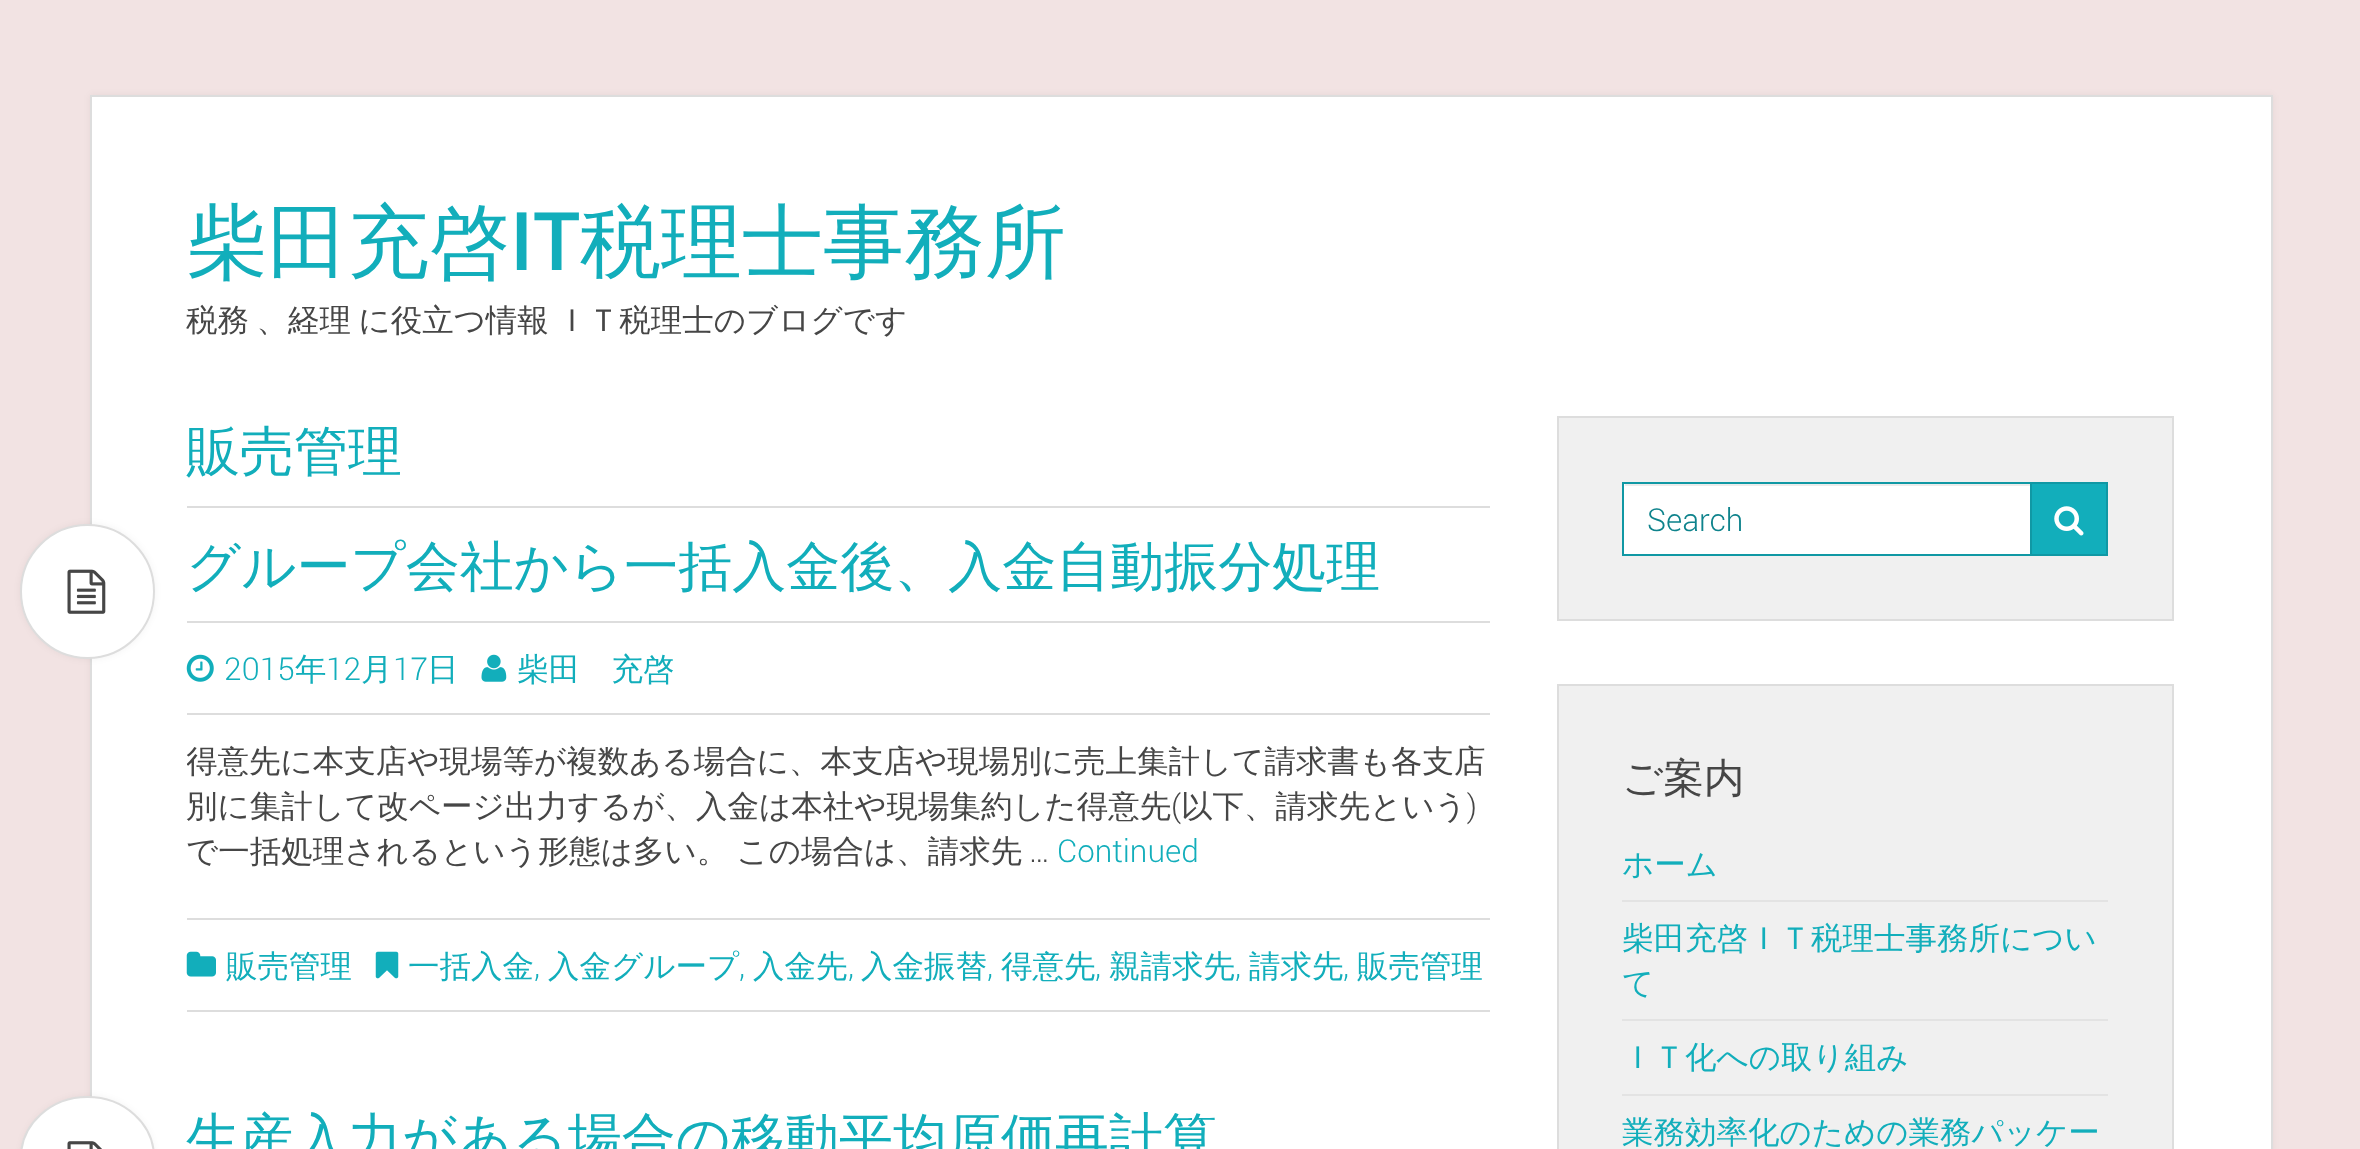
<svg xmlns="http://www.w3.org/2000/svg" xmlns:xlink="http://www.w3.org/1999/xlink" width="2360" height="1149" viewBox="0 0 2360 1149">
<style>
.cls-1{font:500 81px WenQuanYi Zen Hei;fill:#12aebb}
.cls-2{font:500 81px Roboto;fill:#12aebb}
.cls-3{font:500 31.5px WenQuanYi Zen Hei;fill:#464646}
.cls-4{font:500 54px WenQuanYi Zen Hei;fill:#12aebb}
.cls-5{font:300 31.5px Roboto;fill:#12aebb}
.cls-6{font:500 31.5px WenQuanYi Zen Hei;fill:#12aebb}
.cls-7{font:300 31.5px Roboto;fill:#464646}
.cls-8{font:300 31.5px Roboto;fill:#0e838c}
.cls-9{font:500 40.5px WenQuanYi Zen Hei;fill:#464646}
</style>
<defs>
<clipPath id="clip1"><rect x="187" y="738" width="1303" height="158"/></clipPath>
</defs>
<rect width="100%" height="100%" fill="#f2e3e3"/>
<rect fill="#000000" fill-opacity="0.05" filter="blur(3.5px)" x="90" y="95" width="2183" height="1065"/>
<rect fill="#ffffff" stroke="#dddddd" stroke-width="2" x="91" y="96" width="2181" height="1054"/>
<rect fill="#dddddd" x="187" y="506" width="1303" height="2"/>
<rect fill="#000000" fill-opacity="0.05" filter="blur(3.5px)" x="20" y="524" width="135" height="135" rx="67.5"/>
<circle fill="#ffffff" stroke="#dddddd" stroke-width="2" cx="87.5" cy="591.5" r="66.5"/>
<image xlink:href="image0.png" x="67" y="569" width="39" height="45"/>
<rect fill="#dddddd" x="187" y="621" width="1303" height="2"/>
<rect fill="#dddddd" x="187" y="713" width="1303" height="2"/>
<image xlink:href="image1.png" x="186" y="654" width="28" height="28"/>
<image xlink:href="image2.png" x="481" y="654" width="26" height="28"/>
<rect fill="#dddddd" x="187" y="918" width="1303" height="2"/>
<rect fill="#dddddd" x="187" y="1010" width="1303" height="2"/>
<image xlink:href="image3.png" x="186" y="951" width="30" height="26"/>
<image xlink:href="image4.png" x="375" y="951" width="24" height="28"/>
<rect fill="#000000" fill-opacity="0.05" filter="blur(3.5px)" x="20" y="1096" width="135" height="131" rx="67.5"/>
<rect fill="#ffffff" stroke="#dddddd" stroke-width="2" x="21" y="1097" width="133" height="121" rx="66.5"/>
<image xlink:href="image5.png" x="67" y="1141" width="35" height="8"/>
<rect fill="#f0f0f0" stroke="#dddddd" stroke-width="2" x="1558" y="417" width="615" height="203"/>
<rect fill="#ffffff" x="1624" y="484" width="406" height="70"/>
<rect fill="#ececec" x="1625" y="484" width="405" height="2"/>
<rect fill="#12aebb" stroke="#1098a4" stroke-width="2" x="2031" y="483" width="76" height="72"/>
<rect fill="none" stroke="#1098a4" stroke-width="2" x="1623" y="483" width="408" height="72"/>
<image xlink:href="image6.png" x="2054" y="506" width="30" height="30"/>
<rect fill="#f0f0f0" stroke="#dddddd" stroke-width="2" x="1558" y="685" width="615" height="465"/>
<rect fill="#e3e3e3" x="1622" y="900" width="486" height="2"/>
<rect fill="#e3e3e3" x="1622" y="1019" width="486" height="2"/>
<rect fill="#e3e3e3" x="1622" y="1094" width="486" height="2"/>
<text class="cls-1" x="186" y="270">柴田充啓</text>
<text class="cls-2" x="510" y="270">IT</text>
<text class="cls-1" x="580" y="270">税理士事務所</text>
<text class="cls-3" x="186" y="331" word-spacing="-2">税務 、経理 に役立つ情報 ＩＴ税理士のブログです</text>
<text class="cls-4" x="186" y="470">販売管理</text>
<text class="cls-4" x="186" y="585">グループ会社から一括入金後、入金自動振分処理</text>
<text class="cls-5" x="224" y="680">2015</text>
<text class="cls-6" x="295" y="680">年</text>
<text class="cls-5" x="326" y="680">12</text>
<text class="cls-6" x="361" y="680">月</text>
<text class="cls-5" x="393" y="680">17</text>
<text class="cls-6" x="427" y="680">日</text>
<text class="cls-6" x="517" y="680">柴田　充啓</text>
<g clip-path="url(#clip1)">
<text class="cls-3" x="186" y="772">得意先に本支店や現場等が複数ある場合に、本支店や現場別に売上集計して請求書も各支店</text>
</g>
<text class="cls-3" x="186" y="817">別に集計して改ページ出力するが、入金は本社や現場集約した得意先</text>
<text class="cls-7" x="1171" y="817">(</text>
<text class="cls-3" x="1181" y="817">以下、請求先という</text>
<text class="cls-7" x="1467" y="817">)</text>
<text class="cls-3" x="186" y="862" word-spacing="-1">で一括処理されるという形態は多い。 この場合は、請求先</text>
<text class="cls-7" x="1029" y="862">…</text>
<text class="cls-5" x="1057" y="862">Continued</text>
<text class="cls-6" x="226" y="977">販売管理</text>
<text class="cls-6" x="408" y="977">一括入金</text>
<text class="cls-5" x="534" y="977">,</text>
<text class="cls-6" x="548" y="977">入金グループ</text>
<text class="cls-5" x="739" y="977">,</text>
<text class="cls-6" x="753" y="977">入金先</text>
<text class="cls-5" x="848" y="977">,</text>
<text class="cls-6" x="861" y="977">入金振替</text>
<text class="cls-5" x="987" y="977">,</text>
<text class="cls-6" x="1001" y="977">得意先</text>
<text class="cls-5" x="1095" y="977">,</text>
<text class="cls-6" x="1109" y="977">親請求先</text>
<text class="cls-5" x="1235" y="977">,</text>
<text class="cls-6" x="1249" y="977">請求先</text>
<text class="cls-5" x="1343" y="977">,</text>
<text class="cls-6" x="1357" y="977">販売管理</text>
<text class="cls-4" x="186" y="1157">生産入力がある場合の移動平均原価再計算</text>
<text class="cls-8" x="1647" y="531">Search</text>
<text class="cls-9" x="1622" y="792">ご案内</text>
<text class="cls-6" x="1622" y="875">ホーム</text>
<text class="cls-6"><tspan x="1622" y="949">柴田充啓ＩＴ税理士事務所につい</tspan><tspan x="1622" y="994">て</tspan></text>
<text class="cls-6" x="1622" y="1068">ＩＴ化への取り組み</text>
<text class="cls-6" x="1622" y="1143">業務効率化のための業務パッケー</text>
</svg>
